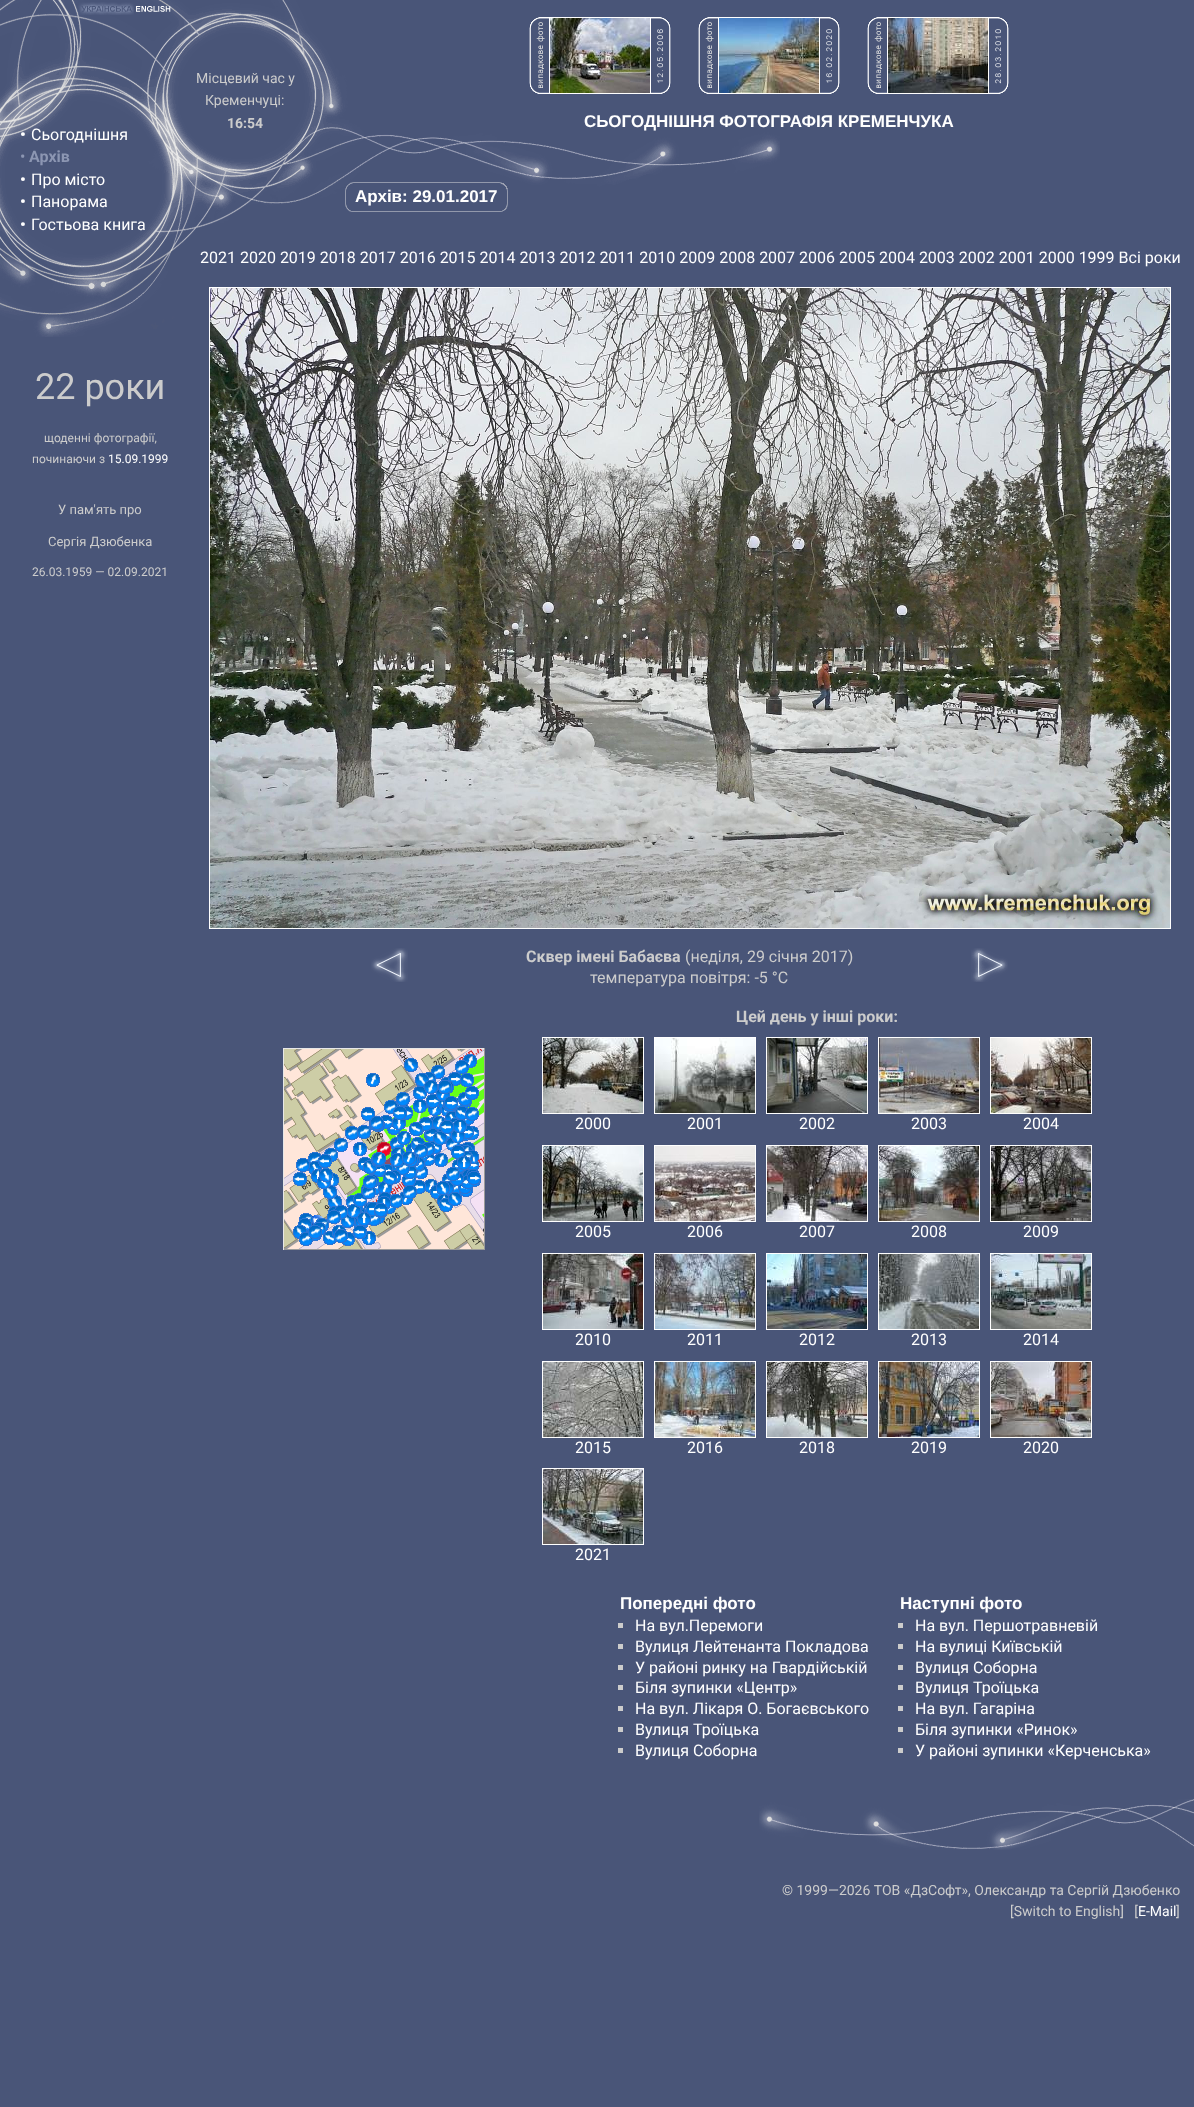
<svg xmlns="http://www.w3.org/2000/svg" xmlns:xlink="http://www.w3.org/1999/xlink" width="1194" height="2107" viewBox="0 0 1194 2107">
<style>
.cls-1{font:14px Roboto;fill:#cccccc}
.cls-2{font:bold 14px Roboto;fill:#cccccc}
.cls-3{font:bold 16px Roboto;fill:#ffffff}
.cls-4{font:16px Roboto;fill:#ffffff}
.cls-5{font:16px Roboto;fill:#8c96b2}
.cls-6{font:bold 16px Roboto;fill:#8c96b2}
.cls-7{font:bold 17px Arimo;fill:#ffffff}
.cls-8{font:36px Roboto;fill:#cccccc}
.cls-9{font:12px Roboto;fill:#cccccc}
.cls-10{font:12px Roboto;fill:#ffffff}
.cls-11{font:13px Roboto;fill:#cccccc}
.cls-12{font:bold 16px Roboto;fill:#cccccc}
.cls-13{font:16px Roboto;fill:#cccccc}
.cls-14{font:14px Roboto;fill:#ffffff}
</style>
<rect width="100%" height="100%" fill="#495578"/>
<image xlink:href="image0.png" x="0" y="0" width="780" height="248"/>
<image xlink:href="image1.png" x="77" y="2" width="57" height="13"/>
<image xlink:href="image2.png" x="136" y="0" width="39" height="12"/>
<image xlink:href="image3.png" x="529" y="17" width="20" height="77"/>
<rect fill="none" stroke="#ffffff" x="549.5" y="17.5" width="101" height="76"/>
<image xlink:href="image4.png" x="550" y="18" width="100" height="75"/>
<image xlink:href="image5.png" x="651" y="17" width="20" height="77"/>
<image xlink:href="image6.png" x="657" y="29" width="6" height="5"/>
<image xlink:href="image7.png" x="657" y="35" width="6" height="5"/>
<image xlink:href="image7.png" x="657" y="41" width="6" height="5"/>
<image xlink:href="image8.png" x="657" y="47" width="6" height="5"/>
<rect fill="#9da4b6" x="662" y="54" width="1" height="1"/>
<image xlink:href="image9.png" x="657" y="57" width="6" height="5"/>
<image xlink:href="image7.png" x="657" y="63" width="6" height="5"/>
<rect fill="#9da4b6" x="662" y="70" width="1" height="1"/>
<image xlink:href="image8.png" x="657" y="73" width="6" height="5"/>
<image xlink:href="image10.png" x="657" y="80" width="6" height="3"/>
<image xlink:href="image3.png" x="698" y="17" width="20" height="77"/>
<rect fill="none" stroke="#ffffff" x="718.5" y="17.5" width="101" height="76"/>
<image xlink:href="image11.png" x="719" y="18" width="100" height="75"/>
<image xlink:href="image5.png" x="820" y="17" width="20" height="77"/>
<image xlink:href="image7.png" x="826" y="29" width="6" height="5"/>
<image xlink:href="image8.png" x="826" y="35" width="6" height="5"/>
<image xlink:href="image7.png" x="826" y="41" width="6" height="5"/>
<image xlink:href="image8.png" x="826" y="47" width="6" height="5"/>
<rect fill="#9da4b6" x="831" y="54" width="1" height="1"/>
<image xlink:href="image8.png" x="826" y="57" width="6" height="5"/>
<image xlink:href="image7.png" x="826" y="63" width="6" height="5"/>
<rect fill="#9da4b6" x="831" y="70" width="1" height="1"/>
<image xlink:href="image6.png" x="826" y="73" width="6" height="5"/>
<image xlink:href="image10.png" x="826" y="80" width="6" height="3"/>
<image xlink:href="image3.png" x="867" y="17" width="20" height="77"/>
<rect fill="none" stroke="#ffffff" x="887.5" y="17.5" width="101" height="76"/>
<image xlink:href="image12.png" x="888" y="18" width="100" height="75"/>
<image xlink:href="image5.png" x="989" y="17" width="20" height="77"/>
<image xlink:href="image7.png" x="995" y="29" width="6" height="5"/>
<image xlink:href="image10.png" x="995" y="36" width="6" height="3"/>
<image xlink:href="image7.png" x="995" y="41" width="6" height="5"/>
<image xlink:href="image8.png" x="995" y="47" width="6" height="5"/>
<rect fill="#9da4b6" x="1000" y="54" width="1" height="1"/>
<image xlink:href="image13.png" x="995" y="57" width="6" height="5"/>
<image xlink:href="image7.png" x="995" y="63" width="6" height="5"/>
<rect fill="#9da4b6" x="1000" y="70" width="1" height="1"/>
<image xlink:href="image14.png" x="995" y="73" width="6" height="5"/>
<image xlink:href="image8.png" x="995" y="79" width="6" height="5"/>
<image xlink:href="image15.png" x="345" y="182" width="163" height="30"/>
<image xlink:href="image16.png" x="0" y="248" width="176" height="89"/>
<rect fill="none" stroke="#ffffff" x="209.5" y="287.5" width="961" height="641"/>
<image xlink:href="image17.png" x="210" y="288" width="960" height="640"/>
<image xlink:href="image18.png" x="371" y="948" width="37" height="34"/>
<image xlink:href="image19.png" x="971" y="948" width="37" height="34"/>
<rect fill="#e7e7e7" x="283" y="1048" width="202" height="1"/>
<rect fill="#9a9a9a" x="484" y="1048" width="1" height="202"/>
<rect fill="#9a9a9a" x="283" y="1249" width="202" height="1"/>
<rect fill="#e7e7e7" x="283" y="1048" width="1" height="202"/>
<image xlink:href="image20.png" x="284" y="1049" width="200" height="200"/>
<image xlink:href="image21.png" x="366" y="1073" width="14" height="14"/>
<image xlink:href="image22.png" x="404" y="1058" width="14" height="14"/>
<image xlink:href="image29.png" x="441" y="1077" width="7" height="4"/>
<image xlink:href="image25.png" x="431" y="1065" width="14" height="14"/>
<image xlink:href="image24.png" x="425" y="1072" width="11" height="9"/>
<image xlink:href="image34.png" x="413" y="1086" width="14" height="14"/>
<image xlink:href="image23.png" x="415" y="1073" width="14" height="14"/>
<image xlink:href="image26.png" x="448" y="1072" width="13" height="14"/>
<image xlink:href="image28.png" x="463" y="1054" width="14" height="14"/>
<image xlink:href="image27.png" x="455" y="1060" width="14" height="14"/>
<image xlink:href="image30.png" x="460" y="1073" width="14" height="14"/>
<image xlink:href="image36.png" x="448" y="1080" width="6" height="13"/>
<image xlink:href="image43.png" x="413" y="1100" width="14" height="13"/>
<image xlink:href="image54.png" x="428" y="1107" width="13" height="9"/>
<image xlink:href="image44.png" x="438" y="1101" width="6" height="9"/>
<image xlink:href="image53.png" x="427" y="1106" width="1" height="2"/>
<image xlink:href="image38.png" x="426" y="1094" width="14" height="14"/>
<image xlink:href="image35.png" x="436" y="1090" width="14" height="11"/>
<image xlink:href="image31.png" x="424" y="1080" width="14" height="14"/>
<image xlink:href="image32.png" x="438" y="1080" width="14" height="14"/>
<image xlink:href="image41.png" x="384" y="1100" width="14" height="14"/>
<image xlink:href="image42.png" x="398" y="1105" width="10" height="1"/>
<image xlink:href="image33.png" x="396" y="1092" width="14" height="14"/>
<image xlink:href="image46.png" x="457" y="1098" width="5" height="9"/>
<image xlink:href="image47.png" x="465" y="1102" width="7" height="6"/>
<image xlink:href="image40.png" x="458" y="1092" width="14" height="14"/>
<image xlink:href="image37.png" x="465" y="1086" width="14" height="14"/>
<image xlink:href="image55.png" x="441" y="1105" width="6" height="11"/>
<image xlink:href="image56.png" x="445" y="1111" width="11" height="9"/>
<image xlink:href="image63.png" x="450" y="1118" width="7" height="5"/>
<image xlink:href="image67.png" x="465" y="1119" width="9" height="6"/>
<image xlink:href="image57.png" x="455" y="1106" width="12" height="14"/>
<image xlink:href="image45.png" x="443" y="1102" width="13" height="10"/>
<image xlink:href="image39.png" x="444" y="1096" width="14" height="14"/>
<image xlink:href="image48.png" x="361" y="1107" width="14" height="14"/>
<image xlink:href="image71.png" x="387" y="1126" width="14" height="9"/>
<image xlink:href="image50.png" x="381" y="1115" width="12" height="14"/>
<image xlink:href="image68.png" x="345" y="1126" width="13" height="14"/>
<image xlink:href="image69.png" x="357" y="1125" width="14" height="14"/>
<image xlink:href="image70.png" x="375" y="1122" width="10" height="10"/>
<image xlink:href="image64.png" x="369" y="1121" width="12" height="10"/>
<image xlink:href="image49.png" x="370" y="1116" width="14" height="14"/>
<image xlink:href="image60.png" x="392" y="1118" width="14" height="12"/>
<image xlink:href="image52.png" x="403" y="1106" width="10" height="14"/>
<image xlink:href="image51.png" x="393" y="1106" width="14" height="14"/>
<image xlink:href="image58.png" x="465" y="1107" width="14" height="14"/>
<image xlink:href="image59.png" x="431" y="1116" width="5" height="12"/>
<image xlink:href="image81.png" x="424" y="1131" width="5" height="11"/>
<image xlink:href="image74.png" x="425" y="1128" width="13" height="14"/>
<image xlink:href="image61.png" x="419" y="1117" width="14" height="14"/>
<image xlink:href="image62.png" x="432" y="1116" width="13" height="14"/>
<image xlink:href="image78.png" x="470" y="1126" width="9" height="14"/>
<image xlink:href="image86.png" x="464" y="1138" width="7" height="3"/>
<image xlink:href="image77.png" x="464" y="1125" width="10" height="14"/>
<image xlink:href="image85.png" x="446" y="1138" width="14" height="13"/>
<image xlink:href="image93.png" x="463" y="1142" width="12" height="8"/>
<image xlink:href="image76.png" x="451" y="1130" width="14" height="13"/>
<image xlink:href="image66.png" x="453" y="1119" width="14" height="14"/>
<image xlink:href="image75.png" x="438" y="1130" width="13" height="10"/>
<image xlink:href="image89.png" x="406" y="1143" width="8" height="9"/>
<image xlink:href="image84.png" x="411" y="1137" width="14" height="13"/>
<image xlink:href="image111.png" x="425" y="1154" width="10" height="12"/>
<image xlink:href="image107.png" x="434" y="1153" width="14" height="14"/>
<image xlink:href="image91.png" x="431" y="1142" width="11" height="12"/>
<image xlink:href="image90.png" x="423" y="1142" width="12" height="14"/>
<image xlink:href="image92.png" x="445" y="1143" width="1" height="1"/>
<image xlink:href="image82.png" x="433" y="1131" width="14" height="14"/>
<image xlink:href="image65.png" x="440" y="1120" width="14" height="14"/>
<image xlink:href="image79.png" x="390" y="1137" width="14" height="12"/>
<image xlink:href="image72.png" x="397" y="1131" width="14" height="14"/>
<image xlink:href="image80.png" x="419" y="1131" width="5" height="5"/>
<image xlink:href="image73.png" x="409" y="1122" width="14" height="14"/>
<image xlink:href="image96.png" x="324" y="1148" width="14" height="14"/>
<image xlink:href="image83.png" x="334" y="1138" width="14" height="14"/>
<image xlink:href="image87.png" x="353" y="1142" width="14" height="14"/>
<image xlink:href="image88.png" x="377" y="1142" width="14" height="14"/>
<image xlink:href="image115.png" x="423" y="1156" width="5" height="6"/>
<image xlink:href="image94.png" x="414" y="1144" width="14" height="14"/>
<image xlink:href="image95.png" x="460" y="1144" width="3" height="2"/>
<image xlink:href="image97.png" x="391" y="1147" width="14" height="8"/>
<image xlink:href="image120.png" x="382" y="1164" width="10" height="13"/>
<image xlink:href="image121.png" x="392" y="1166" width="4" height="4"/>
<image xlink:href="image124.png" x="416" y="1166" width="12" height="13"/>
<image xlink:href="image114.png" x="416" y="1158" width="9" height="13"/>
<image xlink:href="image147.png" x="425" y="1179" width="12" height="14"/>
<image xlink:href="image146.png" x="414" y="1180" width="12" height="14"/>
<image xlink:href="image145.png" x="402" y="1175" width="14" height="11"/>
<image xlink:href="image123.png" x="404" y="1167" width="13" height="12"/>
<image xlink:href="image122.png" x="396" y="1163" width="14" height="12"/>
<image xlink:href="image105.png" x="390" y="1153" width="13" height="14"/>
<image xlink:href="image106.png" x="414" y="1153" width="6" height="14"/>
<image xlink:href="image110.png" x="405" y="1154" width="13" height="13"/>
<image xlink:href="image98.png" x="402" y="1151" width="14" height="14"/>
<image xlink:href="image100.png" x="463" y="1145" width="10" height="6"/>
<image xlink:href="image92.png" x="478" y="1168" width="1" height="1"/>
<image xlink:href="image126.png" x="469" y="1162" width="10" height="8"/>
<image xlink:href="image101.png" x="469" y="1150" width="10" height="14"/>
<image xlink:href="image92.png" x="462" y="1172" width="1" height="1"/>
<image xlink:href="image130.png" x="462" y="1169" width="8" height="7"/>
<image xlink:href="image125.png" x="452" y="1159" width="13" height="14"/>
<image xlink:href="image108.png" x="464" y="1151" width="9" height="12"/>
<image xlink:href="image99.png" x="451" y="1145" width="14" height="14"/>
<image xlink:href="image102.png" x="308" y="1152" width="13" height="10"/>
<image xlink:href="image117.png" x="308" y="1161" width="14" height="13"/>
<image xlink:href="image103.png" x="318" y="1154" width="14" height="14"/>
<image xlink:href="image113.png" x="358" y="1157" width="13" height="14"/>
<image xlink:href="image119.png" x="373" y="1165" width="13" height="12"/>
<image xlink:href="image118.png" x="363" y="1160" width="14" height="14"/>
<image xlink:href="image109.png" x="371" y="1155" width="12" height="12"/>
<image xlink:href="image104.png" x="372" y="1152" width="14" height="14"/>
<image xlink:href="image112.png" x="296" y="1158" width="14" height="14"/>
<image xlink:href="image132.png" x="466" y="1169" width="13" height="6"/>
<image xlink:href="image116.png" x="457" y="1156" width="14" height="14"/>
<image xlink:href="image129.png" x="311" y="1169" width="10" height="14"/>
<image xlink:href="image137.png" x="331" y="1173" width="8" height="13"/>
<image xlink:href="image168.png" x="328" y="1195" width="14" height="12"/>
<image xlink:href="image150.png" x="323" y="1185" width="14" height="14"/>
<image xlink:href="image141.png" x="317" y="1177" width="14" height="12"/>
<image xlink:href="image127.png" x="319" y="1168" width="14" height="14"/>
<image xlink:href="image139.png" x="442" y="1174" width="8" height="7"/>
<image xlink:href="image160.png" x="453" y="1186" width="6" height="7"/>
<image xlink:href="image156.png" x="446" y="1181" width="8" height="14"/>
<image xlink:href="image155.png" x="430" y="1185" width="10" height="14"/>
<image xlink:href="image171.png" x="437" y="1194" width="12" height="12"/>
<image xlink:href="image173.png" x="439" y="1198" width="14" height="14"/>
<image xlink:href="image166.png" x="448" y="1192" width="14" height="14"/>
<image xlink:href="image167.png" x="459" y="1188" width="14" height="9"/>
<image xlink:href="image157.png" x="458" y="1185" width="14" height="9"/>
<image xlink:href="image149.png" x="462" y="1175" width="12" height="14"/>
<image xlink:href="image140.png" x="450" y="1173" width="14" height="13"/>
<image xlink:href="image128.png" x="446" y="1167" width="14" height="14"/>
<image xlink:href="image144.png" x="395" y="1175" width="6" height="9"/>
<image xlink:href="image131.png" x="391" y="1170" width="9" height="8"/>
<image xlink:href="image133.png" x="293" y="1172" width="14" height="14"/>
<image xlink:href="image152.png" x="375" y="1182" width="5" height="13"/>
<image xlink:href="image143.png" x="378" y="1181" width="14" height="12"/>
<image xlink:href="image153.png" x="381" y="1182" width="10" height="11"/>
<image xlink:href="image134.png" x="383" y="1171" width="14" height="14"/>
<image xlink:href="image53.png" x="417" y="1171" width="1" height="2"/>
<image xlink:href="image158.png" x="474" y="1181" width="7" height="6"/>
<image xlink:href="image135.png" x="467" y="1171" width="14" height="14"/>
<image xlink:href="image136.png" x="294" y="1175" width="12" height="7"/>
<image xlink:href="image138.png" x="369" y="1174" width="10" height="13"/>
<image xlink:href="image151.png" x="361" y="1185" width="3" height="8"/>
<image xlink:href="image169.png" x="346" y="1195" width="8" height="12"/>
<image xlink:href="image175.png" x="328" y="1206" width="8" height="6"/>
<image xlink:href="image190.png" x="354" y="1218" width="2" height="9"/>
<image xlink:href="image185.png" x="341" y="1215" width="14" height="13"/>
<image xlink:href="image176.png" x="334" y="1205" width="14" height="14"/>
<image xlink:href="image182.png" x="362" y="1208" width="2" height="4"/>
<image xlink:href="image178.png" x="360" y="1207" width="3" height="5"/>
<image xlink:href="image177.png" x="347" y="1204" width="14" height="14"/>
<image xlink:href="image161.png" x="353" y="1193" width="14" height="14"/>
<image xlink:href="image159.png" x="362" y="1186" width="14" height="8"/>
<image xlink:href="image162.png" x="362" y="1187" width="13" height="12"/>
<image xlink:href="image142.png" x="363" y="1175" width="14" height="14"/>
<image xlink:href="image148.png" x="436" y="1181" width="14" height="14"/>
<image xlink:href="image165.png" x="400" y="1192" width="13" height="13"/>
<image xlink:href="image154.png" x="403" y="1185" width="14" height="14"/>
<image xlink:href="image163.png" x="378" y="1192" width="13" height="6"/>
<image xlink:href="image92.png" x="392" y="1194" width="1" height="1"/>
<image xlink:href="image180.png" x="387" y="1206" width="9" height="8"/>
<image xlink:href="image164.png" x="390" y="1194" width="13" height="14"/>
<image xlink:href="image170.png" x="377" y="1196" width="14" height="13"/>
<image xlink:href="image172.png" x="364" y="1202" width="6" height="10"/>
<image xlink:href="image92.png" x="376" y="1202" width="1" height="1"/>
<image xlink:href="image174.png" x="366" y="1202" width="11" height="14"/>
<image xlink:href="image192.png" x="380" y="1217" width="5" height="7"/>
<image xlink:href="image191.png" x="369" y="1216" width="12" height="10"/>
<image xlink:href="image187.png" x="374" y="1213" width="13" height="5"/>
<image xlink:href="image179.png" x="374" y="1203" width="14" height="14"/>
<image xlink:href="image184.png" x="312" y="1215" width="11" height="10"/>
<image xlink:href="image189.png" x="315" y="1218" width="14" height="13"/>
<image xlink:href="image181.png" x="327" y="1210" width="14" height="14"/>
<image xlink:href="image183.png" x="299" y="1213" width="14" height="10"/>
<image xlink:href="image195.png" x="355" y="1218" width="13" height="10"/>
<image xlink:href="image202.png" x="342" y="1232" width="13" height="14"/>
<image xlink:href="image203.png" x="362" y="1231" width="14" height="14"/>
<image xlink:href="image198.png" x="353" y="1225" width="14" height="14"/>
<image xlink:href="image186.png" x="357" y="1212" width="14" height="14"/>
<image xlink:href="image188.png" x="298" y="1218" width="14" height="14"/>
<image xlink:href="image193.png" x="293" y="1225" width="14" height="14"/>
<image xlink:href="image200.png" x="323" y="1231" width="13" height="14"/>
<image xlink:href="image194.png" x="313" y="1222" width="13" height="14"/>
<image xlink:href="image199.png" x="299" y="1232" width="14" height="14"/>
<image xlink:href="image204.png" x="313" y="1236" width="9" height="5"/>
<image xlink:href="image196.png" x="308" y="1225" width="14" height="14"/>
<image xlink:href="image205.png" x="332" y="1235" width="2" height="3"/>
<image xlink:href="image197.png" x="332" y="1225" width="14" height="12"/>
<image xlink:href="image201.png" x="334" y="1229" width="14" height="14"/>
<rect fill="none" stroke="#ffffff" x="542.5" y="1037.5" width="101" height="76"/>
<image xlink:href="image206.png" x="543" y="1038" width="100" height="75"/>
<rect fill="none" stroke="#ffffff" x="654.5" y="1037.5" width="101" height="76"/>
<image xlink:href="image207.png" x="655" y="1038" width="100" height="75"/>
<rect fill="none" stroke="#ffffff" x="766.5" y="1037.5" width="101" height="76"/>
<image xlink:href="image208.png" x="767" y="1038" width="100" height="75"/>
<rect fill="none" stroke="#ffffff" x="878.5" y="1037.5" width="101" height="76"/>
<image xlink:href="image209.png" x="879" y="1038" width="100" height="75"/>
<rect fill="none" stroke="#ffffff" x="990.5" y="1037.5" width="101" height="76"/>
<image xlink:href="image210.png" x="991" y="1038" width="100" height="75"/>
<rect fill="none" stroke="#ffffff" x="542.5" y="1145.5" width="101" height="76"/>
<image xlink:href="image211.png" x="543" y="1146" width="100" height="75"/>
<rect fill="none" stroke="#ffffff" x="654.5" y="1145.5" width="101" height="76"/>
<image xlink:href="image212.png" x="655" y="1146" width="100" height="75"/>
<rect fill="none" stroke="#ffffff" x="766.5" y="1145.5" width="101" height="76"/>
<image xlink:href="image213.png" x="767" y="1146" width="100" height="75"/>
<rect fill="none" stroke="#ffffff" x="878.5" y="1145.5" width="101" height="76"/>
<image xlink:href="image214.png" x="879" y="1146" width="100" height="75"/>
<rect fill="none" stroke="#ffffff" x="990.5" y="1145.5" width="101" height="76"/>
<image xlink:href="image215.png" x="991" y="1146" width="100" height="75"/>
<rect fill="none" stroke="#ffffff" x="542.5" y="1253.5" width="101" height="76"/>
<image xlink:href="image216.png" x="543" y="1254" width="100" height="75"/>
<rect fill="none" stroke="#ffffff" x="654.5" y="1253.5" width="101" height="76"/>
<image xlink:href="image217.png" x="655" y="1254" width="100" height="75"/>
<rect fill="none" stroke="#ffffff" x="766.5" y="1253.5" width="101" height="76"/>
<image xlink:href="image218.png" x="767" y="1254" width="100" height="75"/>
<rect fill="none" stroke="#ffffff" x="878.5" y="1253.5" width="101" height="76"/>
<image xlink:href="image219.png" x="879" y="1254" width="100" height="75"/>
<rect fill="none" stroke="#ffffff" x="990.5" y="1253.5" width="101" height="76"/>
<image xlink:href="image220.png" x="991" y="1254" width="100" height="75"/>
<rect fill="none" stroke="#ffffff" x="542.5" y="1361.5" width="101" height="76"/>
<image xlink:href="image221.png" x="543" y="1362" width="100" height="75"/>
<rect fill="none" stroke="#ffffff" x="654.5" y="1361.5" width="101" height="76"/>
<image xlink:href="image222.png" x="655" y="1362" width="100" height="75"/>
<rect fill="none" stroke="#ffffff" x="766.5" y="1361.5" width="101" height="76"/>
<image xlink:href="image223.png" x="767" y="1362" width="100" height="75"/>
<rect fill="none" stroke="#ffffff" x="878.5" y="1361.5" width="101" height="76"/>
<image xlink:href="image224.png" x="879" y="1362" width="100" height="75"/>
<rect fill="none" stroke="#ffffff" x="990.5" y="1361.5" width="101" height="76"/>
<image xlink:href="image225.png" x="991" y="1362" width="100" height="75"/>
<rect fill="none" stroke="#ffffff" x="542.5" y="1468.5" width="101" height="76"/>
<image xlink:href="image226.png" x="543" y="1469" width="100" height="75"/>
<rect fill="#cccccc" x="618" y="1623" width="5" height="5"/>
<rect fill="#cccccc" x="618" y="1644" width="5" height="5"/>
<rect fill="#cccccc" x="618" y="1665" width="5" height="5"/>
<rect fill="#cccccc" x="618" y="1685" width="5" height="5"/>
<rect fill="#cccccc" x="618" y="1706" width="5" height="5"/>
<rect fill="#cccccc" x="618" y="1727" width="5" height="5"/>
<rect fill="#cccccc" x="618" y="1748" width="5" height="5"/>
<rect fill="#cccccc" x="898" y="1623" width="5" height="5"/>
<rect fill="#cccccc" x="898" y="1644" width="5" height="5"/>
<rect fill="#cccccc" x="898" y="1665" width="5" height="5"/>
<rect fill="#cccccc" x="898" y="1685" width="5" height="5"/>
<rect fill="#cccccc" x="898" y="1706" width="5" height="5"/>
<rect fill="#cccccc" x="898" y="1727" width="5" height="5"/>
<rect fill="#cccccc" x="898" y="1748" width="5" height="5"/>
<image xlink:href="image227.png" x="759" y="1799" width="435" height="51"/>
<text class="cls-1" x="196" y="83">Місцевий час у</text>
<text class="cls-1" x="205" y="105">Кременчуці:</text>
<text class="cls-2" x="227" y="128">16:54</text>
<text class="cls-3" x="20" y="140">•</text>
<text class="cls-4" x="31" y="140">Сьогоднішня</text>
<text class="cls-5" x="20" y="162">•</text>
<text class="cls-6" x="29" y="162">Архів</text>
<text class="cls-3" x="20" y="185">•</text>
<text class="cls-4" x="31" y="185">Про місто</text>
<text class="cls-3" x="20" y="207">•</text>
<text class="cls-4" x="31" y="207">Панорама</text>
<text class="cls-3" x="20" y="230">•</text>
<text class="cls-4" x="31" y="230">Гостьова книга</text>
<text class="cls-7" x="584" y="127">СЬОГОДНІШНЯ ФОТОГРАФІЯ КРЕМЕНЧУКА</text>
<text class="cls-7" x="355" y="202">Архів: 29.01.2017</text>
<text class="cls-8" x="35" y="399">22 роки</text>
<text class="cls-9" x="44" y="442">щоденні фотографії,</text>
<text class="cls-9" x="32" y="463">починаючи з</text>
<text class="cls-10" x="108" y="463">15.09.1999</text>
<text class="cls-11" x="58" y="514">У пам'ять про</text>
<text class="cls-11" x="48" y="546">Сергія Дзюбенка</text>
<text class="cls-9" x="32" y="576">26.03.1959 — 02.09.2021</text>
<text class="cls-4" x="200" y="263">2021 2020 2019 2018 2017 2016 2015 2014 2013 2012 2011 2010 2009 2008 2007 2006 2005 2004 2003 2002 2001 2000 1999 Всі роки</text>
<text class="cls-12" x="526" y="962">Сквер імені Бабаєва</text>
<text class="cls-13" x="685" y="962">(неділя, 29 січня 2017)</text>
<text class="cls-13" x="590" y="983">температура повітря: -5 °C</text>
<text class="cls-12" x="736" y="1022">Цей день у інші роки:</text>
<text class="cls-4" x="575" y="1129">2000</text>
<text class="cls-4" x="687" y="1129">2001</text>
<text class="cls-4" x="799" y="1129">2002</text>
<text class="cls-4" x="911" y="1129">2003</text>
<text class="cls-4" x="1023" y="1129">2004</text>
<text class="cls-4" x="575" y="1237">2005</text>
<text class="cls-4" x="687" y="1237">2006</text>
<text class="cls-4" x="799" y="1237">2007</text>
<text class="cls-4" x="911" y="1237">2008</text>
<text class="cls-4" x="1023" y="1237">2009</text>
<text class="cls-4" x="575" y="1345">2010</text>
<text class="cls-4" x="687" y="1345">2011</text>
<text class="cls-4" x="799" y="1345">2012</text>
<text class="cls-4" x="911" y="1345">2013</text>
<text class="cls-4" x="1023" y="1345">2014</text>
<text class="cls-4" x="575" y="1453">2015</text>
<text class="cls-4" x="687" y="1453">2016</text>
<text class="cls-4" x="799" y="1453">2018</text>
<text class="cls-4" x="911" y="1453">2019</text>
<text class="cls-4" x="1023" y="1453">2020</text>
<text class="cls-4" x="575" y="1560">2021</text>
<text class="cls-7" x="620" y="1609">Попередні фото</text>
<text class="cls-7" x="900" y="1609">Наступні фото</text>
<text class="cls-4"><tspan x="635" y="1631">На вул.Перемоги</tspan><tspan x="635" y="1652">Вулиця Лейтенанта Покладова</tspan><tspan x="635" y="1673">У районі ринку на Гвардійській</tspan><tspan x="635" y="1693">Біля зупинки «Центр»</tspan><tspan x="635" y="1714">На вул. Лікаря О. Богаєвського</tspan><tspan x="635" y="1735">Вулиця Троїцька</tspan><tspan x="635" y="1756">Вулиця Соборна</tspan></text>
<text class="cls-4"><tspan x="915" y="1631">На вул. Першотравневій</tspan><tspan x="915" y="1652">На вулиці Київській</tspan><tspan x="915" y="1673">Вулиця Соборна</tspan><tspan x="915" y="1693">Вулиця Троїцька</tspan><tspan x="915" y="1714">На вул. Гагаріна</tspan><tspan x="915" y="1735">Біля зупинки «Ринок»</tspan><tspan x="915" y="1756">У районі зупинки «Керченська»</tspan></text>
<text class="cls-1" x="782" y="1895">© 1999—2026 ТОВ «ДзСофт», Олександр та Сергій Дзюбенко</text>
<text class="cls-1" xml:space="preserve" x="1010" y="1916">[Switch to English]   [</text>
<text class="cls-14" x="1138" y="1916">E-Mail</text>
<text class="cls-1" x="1176" y="1916">]</text>
</svg>
